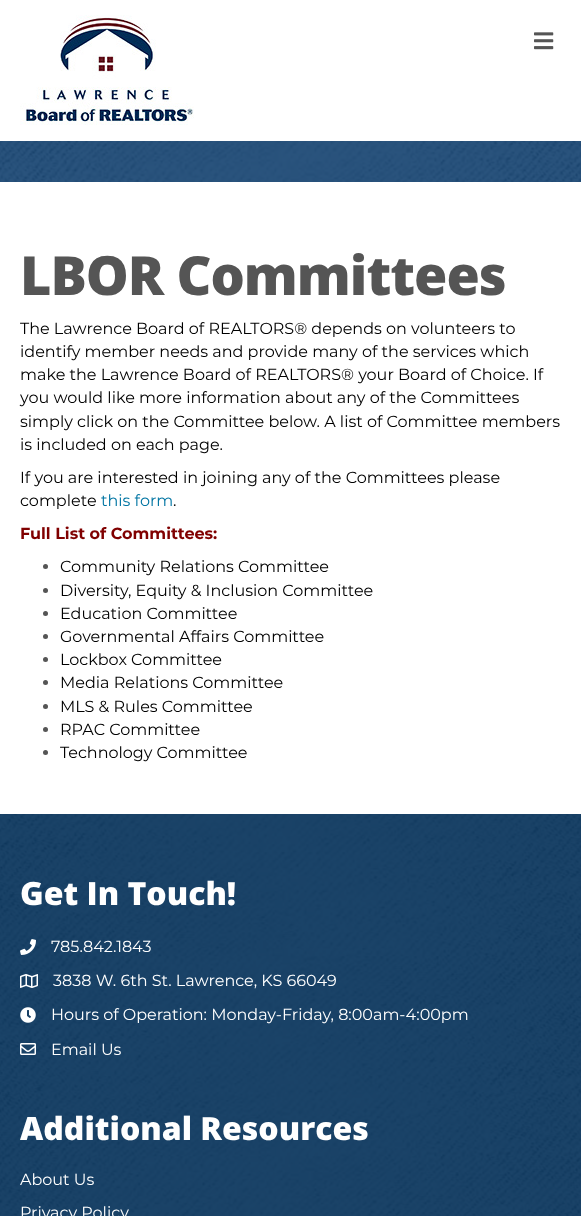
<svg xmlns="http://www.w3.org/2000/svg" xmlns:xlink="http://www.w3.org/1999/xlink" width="581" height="1216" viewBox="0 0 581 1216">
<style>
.cls-1{font:800 54px Open Sans;letter-spacing:-1px;fill:#555555}
.cls-2{font:16px Montserrat;fill:#000000}
.cls-3{font:16px Montserrat;fill:#0075a3}
.cls-4{font:bold 16px Montserrat;fill:#800000}
.cls-5{font:800 32px Open Sans;fill:#ffffff}
.cls-6{font:16px Montserrat;fill:#ffffff}
</style>
<rect width="100%" height="100%" fill="#ffffff"/>
<image xlink:href="image0.png" x="20" y="15" width="174" height="110"/>
<image xlink:href="image1.png" x="534" y="32" width="20" height="18"/>
<image xlink:href="image2.png" x="0" y="141" width="581" height="41"/>
<circle fill="#555555" cx="45.5" cy="566.5" r="2.5"/>
<circle fill="#555555" cx="45.5" cy="590.5" r="2.5"/>
<circle fill="#555555" cx="45.5" cy="613.5" r="2.5"/>
<circle fill="#555555" cx="45.5" cy="636.5" r="2.5"/>
<circle fill="#555555" cx="45.5" cy="659.5" r="2.5"/>
<circle fill="#555555" cx="45.5" cy="682.5" r="2.5"/>
<circle fill="#555555" cx="45.5" cy="706.5" r="2.5"/>
<circle fill="#555555" cx="45.5" cy="729.5" r="2.5"/>
<circle fill="#555555" cx="45.5" cy="752.5" r="2.5"/>
<image xlink:href="image3.png" x="0" y="814" width="581" height="402"/>
<image xlink:href="image4.png" x="20" y="939" width="16" height="16"/>
<image xlink:href="image5.png" x="20" y="974" width="18" height="14"/>
<image xlink:href="image6.png" x="20" y="1007" width="16" height="16"/>
<image xlink:href="image7.png" x="20" y="1043" width="16" height="12"/>
<text class="cls-1" x="20" y="295">LBOR Committees</text>
<text class="cls-2"><tspan x="20" y="334">The Lawrence Board of REALTORS® depends on volunteers to</tspan><tspan x="20" y="357">identify member needs and provide many of the services which</tspan><tspan x="20" y="380">make the Lawrence Board of REALTORS® your Board of Choice. If</tspan><tspan x="20" y="403">you would like more information about any of the Committees</tspan><tspan x="20" y="427">simply click on the Committee below. A list of Committee members</tspan><tspan x="20" y="450">is included on each page.</tspan></text>
<text class="cls-2"><tspan x="20" y="483">If you are interested in joining any of the Committees please</tspan><tspan x="20" y="506">complete</tspan></text>
<text class="cls-3" x="101" y="506">this form</text>
<text class="cls-2" x="173" y="506">.</text>
<text class="cls-4" x="20" y="539">Full List of Committees:</text>
<text class="cls-2"><tspan x="60" y="572">Community Relations Committee</tspan><tspan x="60" y="596">Diversity, Equity &amp; Inclusion Committee</tspan><tspan x="60" y="619">Education Committee</tspan><tspan x="60" y="642">Governmental Affairs Committee</tspan><tspan x="60" y="665">Lockbox Committee</tspan><tspan x="60" y="688">Media Relations Committee</tspan><tspan x="60" y="712">MLS &amp; Rules Committee</tspan><tspan x="60" y="735">RPAC Committee</tspan><tspan x="60" y="758">Technology Committee</tspan></text>
<text class="cls-5" x="20" y="905">Get In Touch!</text>
<text class="cls-6" x="51" y="952">785.842.1843</text>
<text class="cls-6" x="53" y="986">3838 W. 6th St. Lawrence, KS 66049</text>
<text class="cls-6" x="51" y="1020">Hours of Operation: Monday-Friday, 8:00am-4:00pm</text>
<text class="cls-6" x="51" y="1055">Email Us</text>
<text class="cls-5" x="20" y="1140">Additional Resources</text>
<text class="cls-6" x="20" y="1185">About Us</text>
<text class="cls-6" x="20" y="1218">Privacy Policy</text>
</svg>
